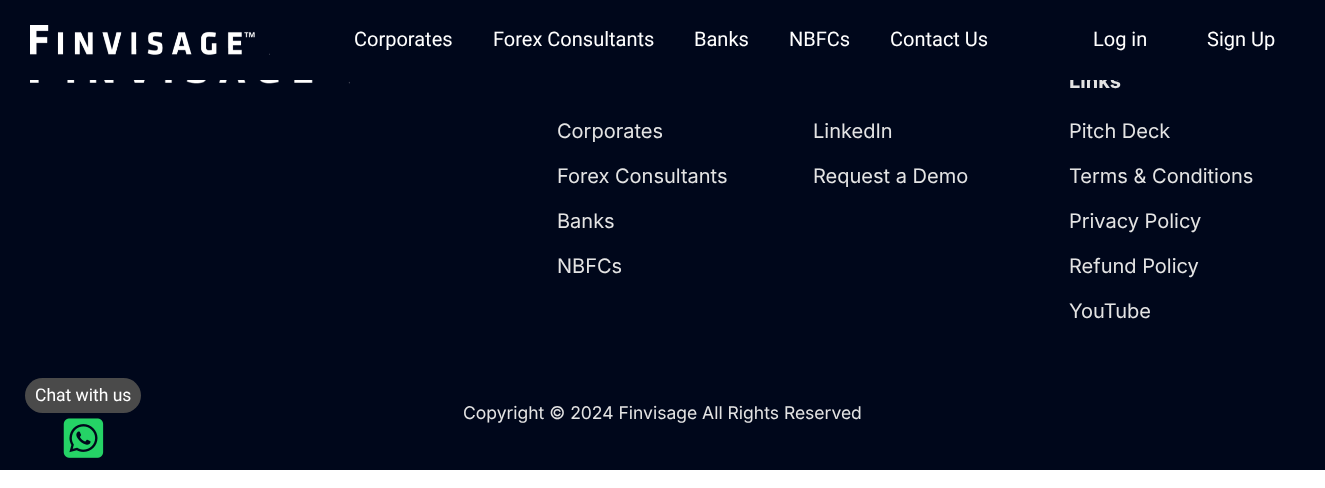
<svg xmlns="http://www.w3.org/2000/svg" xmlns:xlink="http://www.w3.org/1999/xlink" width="1325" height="488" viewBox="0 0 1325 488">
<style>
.cls-1{font:17.5px Roboto;fill:#ffffff}
.cls-2{font:20px Inter;fill:#e4e4e4}
.cls-3{font:bold 20px Inter;fill:#e4e4e4}
.cls-4{font:20px Roboto;fill:#ffffff}
.cls-5{font:17.5px Inter;fill:#e4e4e4}
</style>
<rect width="100%" height="100%" fill="#ffffff"/>
<rect fill="#00071b" x="0" y="80" width="1325" height="390"/>
<rect fill="#4a4a4a" x="25" y="378" width="116" height="35" rx="17.5"/>
<image xlink:href="image1.png" x="63" y="418" width="41" height="40"/>
<image xlink:href="image2.png" x="30" y="80" width="320" height="4"/>
<text class="cls-1" x="35" y="401">Chat with us</text>
<text class="cls-2" x="557" y="138">Corporates</text>
<text class="cls-2" x="557" y="183">Forex Consultants</text>
<text class="cls-2" x="557" y="228">Banks</text>
<text class="cls-2" x="557" y="273">NBFCs</text>
<text class="cls-2" x="813" y="138">LinkedIn</text>
<text class="cls-2" x="813" y="183">Request a Demo</text>
<text class="cls-3" x="1069" y="88">Links</text>
<rect fill="#00071b" x="0" y="0" width="1325" height="80"/>
<text class="cls-4" x="1207" y="46">Sign Up</text>
<text class="cls-4" x="1093" y="46">Log in</text>
<text class="cls-4" x="890" y="46">Contact Us</text>
<text class="cls-4" x="789" y="46">NBFCs</text>
<text class="cls-4" x="694" y="46">Banks</text>
<text class="cls-4" x="493" y="46">Forex Consultants</text>
<text class="cls-4" x="354" y="46">Corporates</text>
<image xlink:href="image0.png" x="30" y="25" width="240" height="30"/>
<text class="cls-2" x="1069" y="138">Pitch Deck</text>
<text class="cls-2" x="1069" y="183">Terms &amp; Conditions</text>
<text class="cls-2" x="1069" y="228">Privacy Policy</text>
<text class="cls-2" x="1069" y="273">Refund Policy</text>
<text class="cls-2" x="1069" y="318">YouTube</text>
<text class="cls-5" x="463" y="419">Copyright © 2024 Finvisage All Rights Reserved</text>
</svg>
